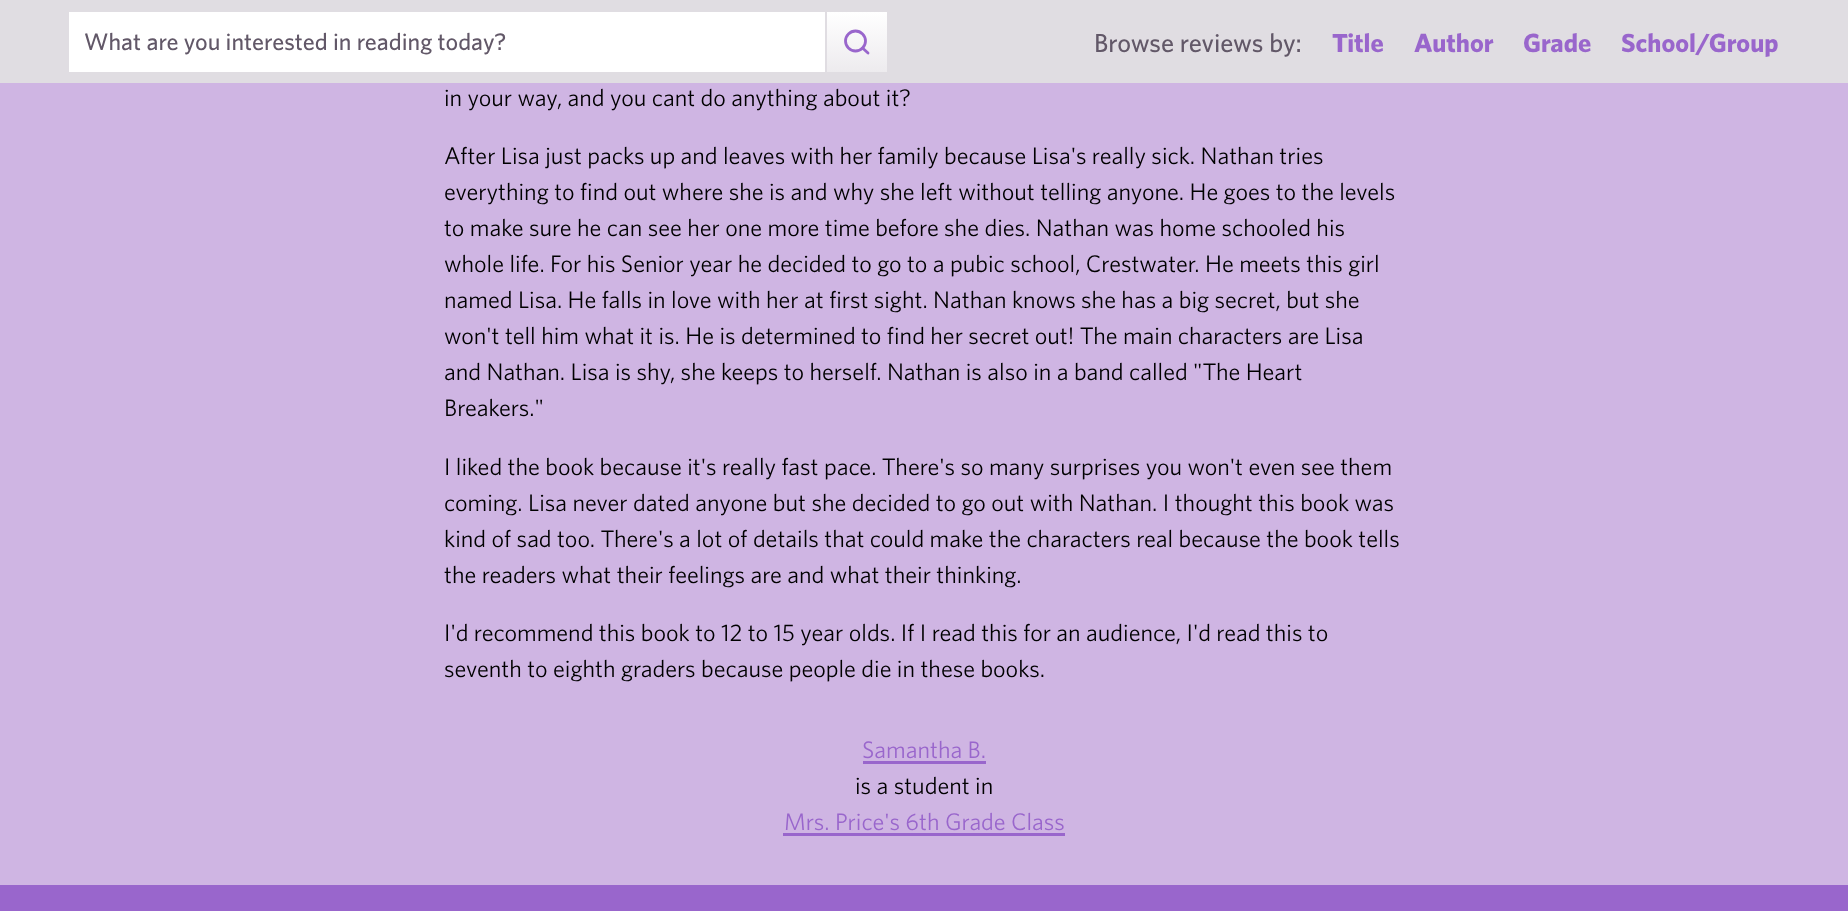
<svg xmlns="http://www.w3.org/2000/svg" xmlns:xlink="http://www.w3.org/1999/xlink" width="1848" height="911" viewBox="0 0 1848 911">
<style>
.cls-1{font:500 24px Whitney;fill:#625868}
.cls-2{font:500 26.25px Whitney;fill:#625868}
.cls-3{font:bold 26.25px Whitney;fill:#9966cc}
.cls-4{font:24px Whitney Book;fill:#000000}
.cls-5{font:24px Whitney Book;fill:#9966cc}
</style>
<defs>
<linearGradient id="g1" gradientUnits="userSpaceOnUse" x1="827" y1="72" x2="827" y2="-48"><stop offset="0" stop-color="#edebee"/><stop offset="0.5" stop-color="#ffffff"/></linearGradient>
</defs>
<rect width="100%" height="100%" fill="#9966cc"/>
<rect fill="#e0dde2" x="0" y="0" width="1848" height="83"/>
<rect fill="#ffffff" x="69" y="12" width="756" height="60"/>
<rect fill="url(#g1)" x="827" y="12" width="60" height="60"/>
<circle fill="none" stroke="#9966cc" stroke-width="2.8" cx="855.5" cy="41" r="10"/>
<path fill="none" stroke="#9966cc" stroke-width="2.8" stroke-linecap="round" stroke-linejoin="round" d="M868 53L862.5 48"/>
<rect fill="#cfb5e3" x="0" y="83" width="1848" height="802"/>
<rect fill="#9966cc" x="863" y="761" width="123" height="3"/>
<rect fill="#9966cc" x="783" y="833" width="282" height="3"/>
<text class="cls-1" x="84" y="50">What are you interested in reading today?</text>
<text class="cls-2" x="1094" y="52">Browse reviews by:</text>
<text class="cls-3" x="1332" y="52">Title</text>
<text class="cls-3" x="1414" y="52">Author</text>
<text class="cls-3" x="1523" y="52">Grade</text>
<text class="cls-3" x="1621" y="52">School/Group</text>
<text class="cls-4" x="444" y="106">in your way, and you cant do anything about it?</text>
<text class="cls-4"><tspan x="444" y="164">After Lisa just packs up and leaves with her family because Lisa's really sick. Nathan tries</tspan><tspan x="444" y="200">everything to find out where she is and why she left without telling anyone. He goes to the levels</tspan><tspan x="444" y="236">to make sure he can see her one more time before she dies. Nathan was home schooled his</tspan><tspan x="444" y="272">whole life. For his Senior year he decided to go to a pubic school, Crestwater. He meets this girl</tspan><tspan x="444" y="308">named Lisa. He falls in love with her at first sight. Nathan knows she has a big secret, but she</tspan><tspan x="444" y="344">won't tell him what it is. He is determined to find her secret out! The main characters are Lisa</tspan><tspan x="444" y="380">and Nathan. Lisa is shy, she keeps to herself. Nathan is also in a band called "The Heart</tspan><tspan x="444" y="416">Breakers."</tspan></text>
<text class="cls-4"><tspan x="444" y="475">I liked the book because it's really fast pace. There's so many surprises you won't even see them</tspan><tspan x="444" y="511">coming. Lisa never dated anyone but she decided to go out with Nathan. I thought this book was</tspan><tspan x="444" y="547">kind of sad too. There's a lot of details that could make the characters real because the book tells</tspan><tspan x="444" y="583">the readers what their feelings are and what their thinking.</tspan></text>
<text class="cls-4"><tspan x="444" y="641">I'd recommend this book to 12 to 15 year olds. If I read this for an audience, I'd read this to</tspan><tspan x="444" y="677">seventh to eighth graders because people die in these books.</tspan></text>
<text class="cls-5" x="862" y="758">Samantha B.</text>
<text class="cls-4" x="855" y="794">is a student in</text>
<text class="cls-5" x="784" y="830">Mrs. Price's 6th Grade Class</text>
</svg>
